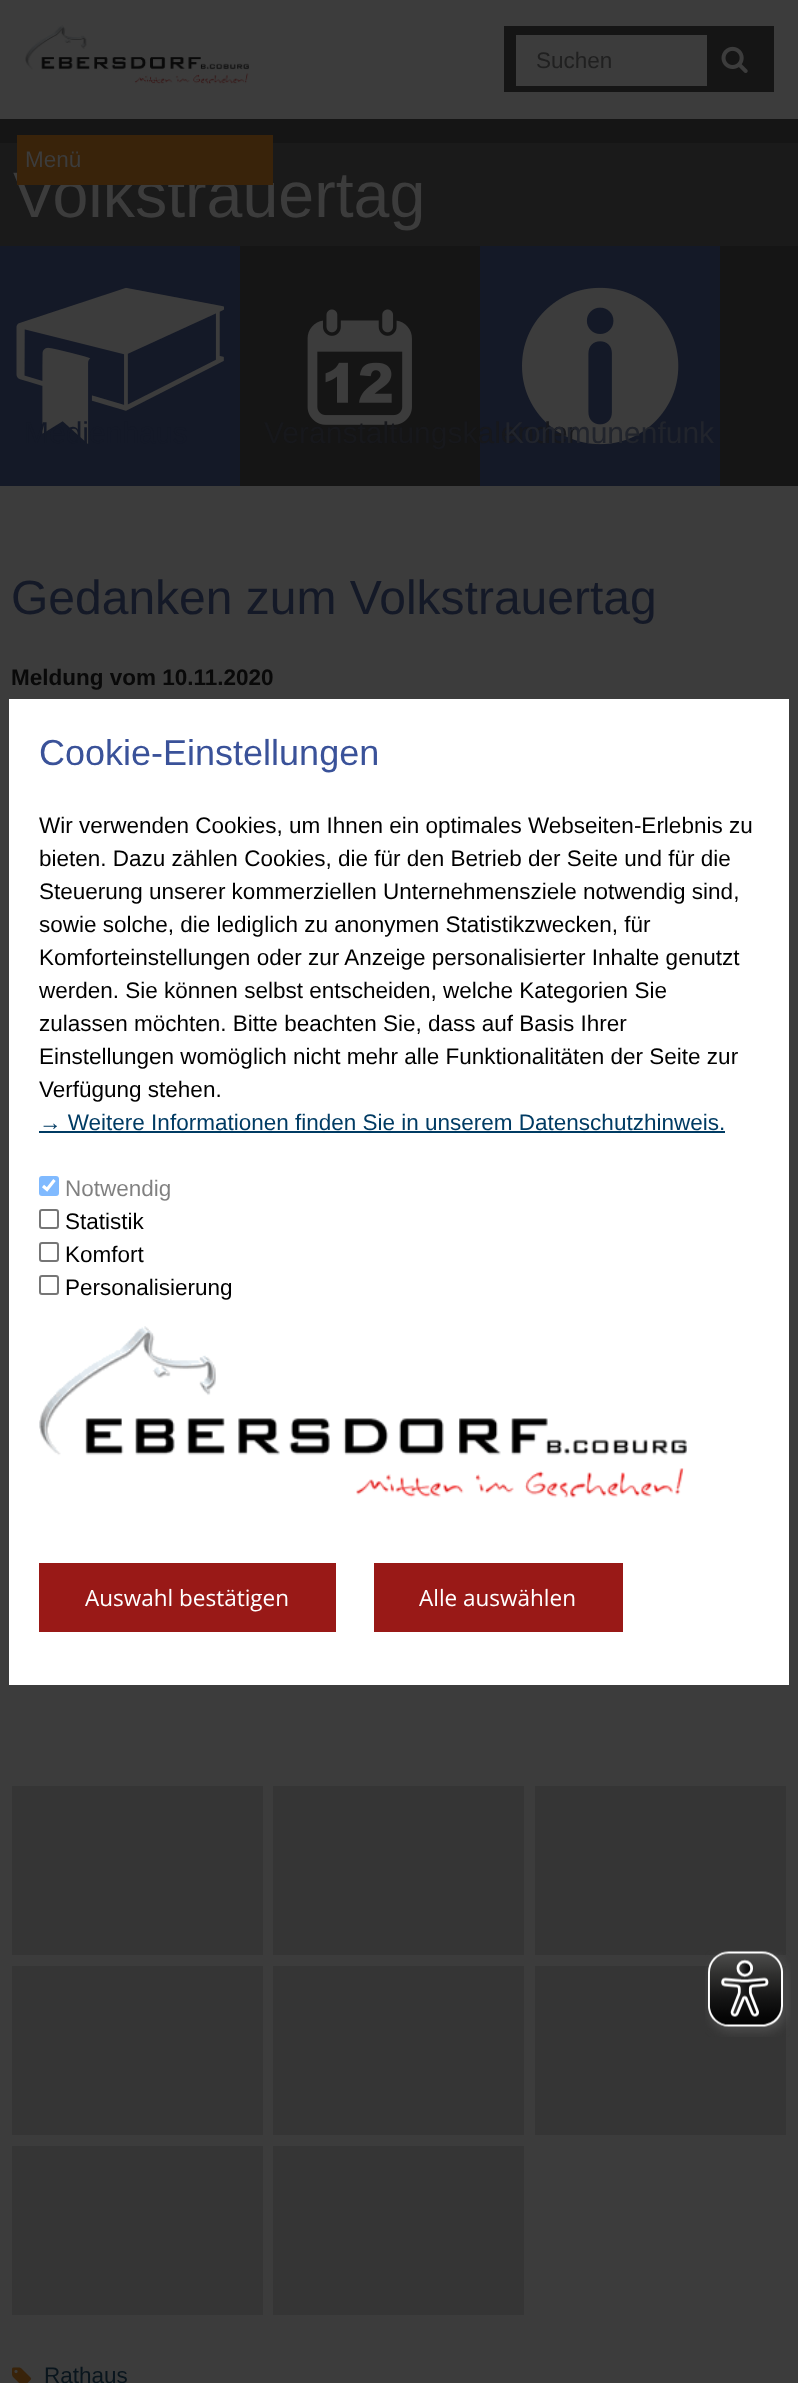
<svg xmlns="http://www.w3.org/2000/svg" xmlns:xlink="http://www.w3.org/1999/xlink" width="798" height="2383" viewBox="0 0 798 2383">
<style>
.cls-1{font:22.5px Liberation Sans;fill:#202020}
.cls-2{font:64.5px Liberation Sans;fill:#3c3c3c}
.cls-3{font:22.5px Liberation Sans;fill:#3c3c3c}
.cls-4{font:30px Liberation Sans;fill:#141927}
.cls-5{font:30px Liberation Sans;fill:#17181c}
.cls-6{font:30px Liberation Sans;fill:#21242c}
.cls-7{font:48px Liberation Sans;fill:#141927}
.cls-8{font:bold 22.5px Liberation Sans;fill:#090909}
.cls-9{font:22.5px Liberation Sans;fill:#09151d}
.cls-10{font:36px Liberation Sans;fill:#3a5299}
.cls-11{font:22.5px Liberation Sans;fill:#000000}
.cls-12{font:22.5px Liberation Sans;fill:#003b63}
.cls-13{font:22.5px Open Sans;fill:#ffffff}
</style>
<rect width="100%" height="100%" fill="#3c3c3c"/>
<image xlink:href="image0.png" x="25" y="25" width="224" height="59"/>
<rect fill="#151515" x="504" y="26" width="270" height="66"/>
<rect fill="#3c3c3c" x="516" y="35" width="191" height="51"/>
<image xlink:href="image1.png" x="721" y="46" width="27" height="27"/>
<rect fill="#151515" x="0" y="119" width="798" height="367"/>
<rect fill="#1a1a1a" x="0" y="143" width="798" height="103"/>
<rect fill="#141927" x="0" y="246" width="240" height="240"/>
<image xlink:href="image2.png" x="16" y="287" width="208" height="157"/>
<image xlink:href="image3.png" x="307" y="309" width="105" height="116"/>
<rect fill="#141927" x="480" y="246" width="240" height="240"/>
<image xlink:href="image4.png" x="522" y="287" width="157" height="158"/>
<rect fill="#353535" x="12" y="1786" width="251" height="169"/>
<rect fill="#353535" x="273" y="1786" width="251" height="169"/>
<rect fill="#353535" x="535" y="1786" width="251" height="169"/>
<rect fill="#353535" x="12" y="1966" width="251" height="169"/>
<rect fill="#353535" x="273" y="1966" width="251" height="169"/>
<rect fill="#353535" x="535" y="1966" width="251" height="169"/>
<rect fill="#353535" x="12" y="2146" width="251" height="169"/>
<rect fill="#353535" x="273" y="2146" width="251" height="169"/>
<image xlink:href="image5.png" x="12" y="2367" width="20" height="16"/>
<rect fill="#ffffff" x="9" y="699" width="780" height="986"/>
<rect fill="#003b63" x="39" y="1131" width="686" height="2"/>
<rect fill="#0075ff" x="39" y="1176" width="20" height="20" rx="3"/>
<path fill="none" stroke="#ffffff" stroke-width="3.1" d="M43 1186L47 1189.5L54.5 1180"/>
<rect fill="none" stroke="#767676" stroke-width="2" x="40" y="1210" width="18" height="18" rx="2"/>
<rect fill="none" stroke="#767676" stroke-width="2" x="40" y="1243" width="18" height="18" rx="2"/>
<rect fill="none" stroke="#767676" stroke-width="2" x="40" y="1276" width="18" height="18" rx="2"/>
<image xlink:href="image6.png" x="39" y="1326" width="648" height="172"/>
<rect fill="#991917" x="39" y="1563" width="297" height="69"/>
<rect fill="#991917" x="374" y="1563" width="249" height="69"/>
<image xlink:href="image7.png" x="705" y="1950" width="86" height="87"/>
<text class="cls-1" x="536" y="68">Suchen</text>
<text class="cls-2" x="13" y="217">Volkstrauertag</text>
<rect fill="#39230a" x="17" y="135" width="256" height="50"/>
<text class="cls-3" x="25" y="167">Menü</text>
<text class="cls-4" x="24" y="443">Medienhaus</text>
<text class="cls-5" x="264" y="443">Veranstaltungskalender</text>
<text class="cls-6" x="504" y="443">Kommunenfunk</text>
<text class="cls-7" x="11" y="614">Gedanken zum Volkstrauertag</text>
<text class="cls-8" x="11" y="685">Meldung vom 10.11.2020</text>
<text class="cls-9" x="44" y="2383">Rathaus</text>
<text class="cls-10" x="39" y="765">Cookie-Einstellungen</text>
<text class="cls-11"><tspan x="39" y="833">Wir verwenden Cookies, um Ihnen ein optimales Webseiten-Erlebnis zu</tspan><tspan x="39" y="866">bieten. Dazu zählen Cookies, die für den Betrieb der Seite und für die</tspan><tspan x="39" y="899">Steuerung unserer kommerziellen Unternehmensziele notwendig sind,</tspan><tspan x="39" y="932">sowie solche, die lediglich zu anonymen Statistikzwecken, für</tspan><tspan x="39" y="965">Komforteinstellungen oder zur Anzeige personalisierter Inhalte genutzt</tspan><tspan x="39" y="998">werden. Sie können selbst entscheiden, welche Kategorien Sie</tspan><tspan x="39" y="1031">zulassen möchten. Bitte beachten Sie, dass auf Basis Ihrer</tspan><tspan x="39" y="1064">Einstellungen womöglich nicht mehr alle Funktionalitäten der Seite zur</tspan><tspan x="39" y="1097">Verfügung stehen.</tspan></text>
<text class="cls-12" x="39" y="1130">→ Weitere Informationen finden Sie in unserem Datenschutzhinweis.</text>
<text class="cls-11" x="65" y="1196">Notwendig</text>
<rect fill="#ffffff" fill-opacity="0.5" x="39" y="1176" width="131" height="25"/>
<text class="cls-11"><tspan x="65" y="1229">Statistik</tspan><tspan x="65" y="1262">Komfort</tspan><tspan x="65" y="1295">Personalisierung</tspan></text>
<text class="cls-13" x="85" y="1606">Auswahl bestätigen</text>
<text class="cls-13" x="419" y="1606">Alle auswählen</text>
</svg>
